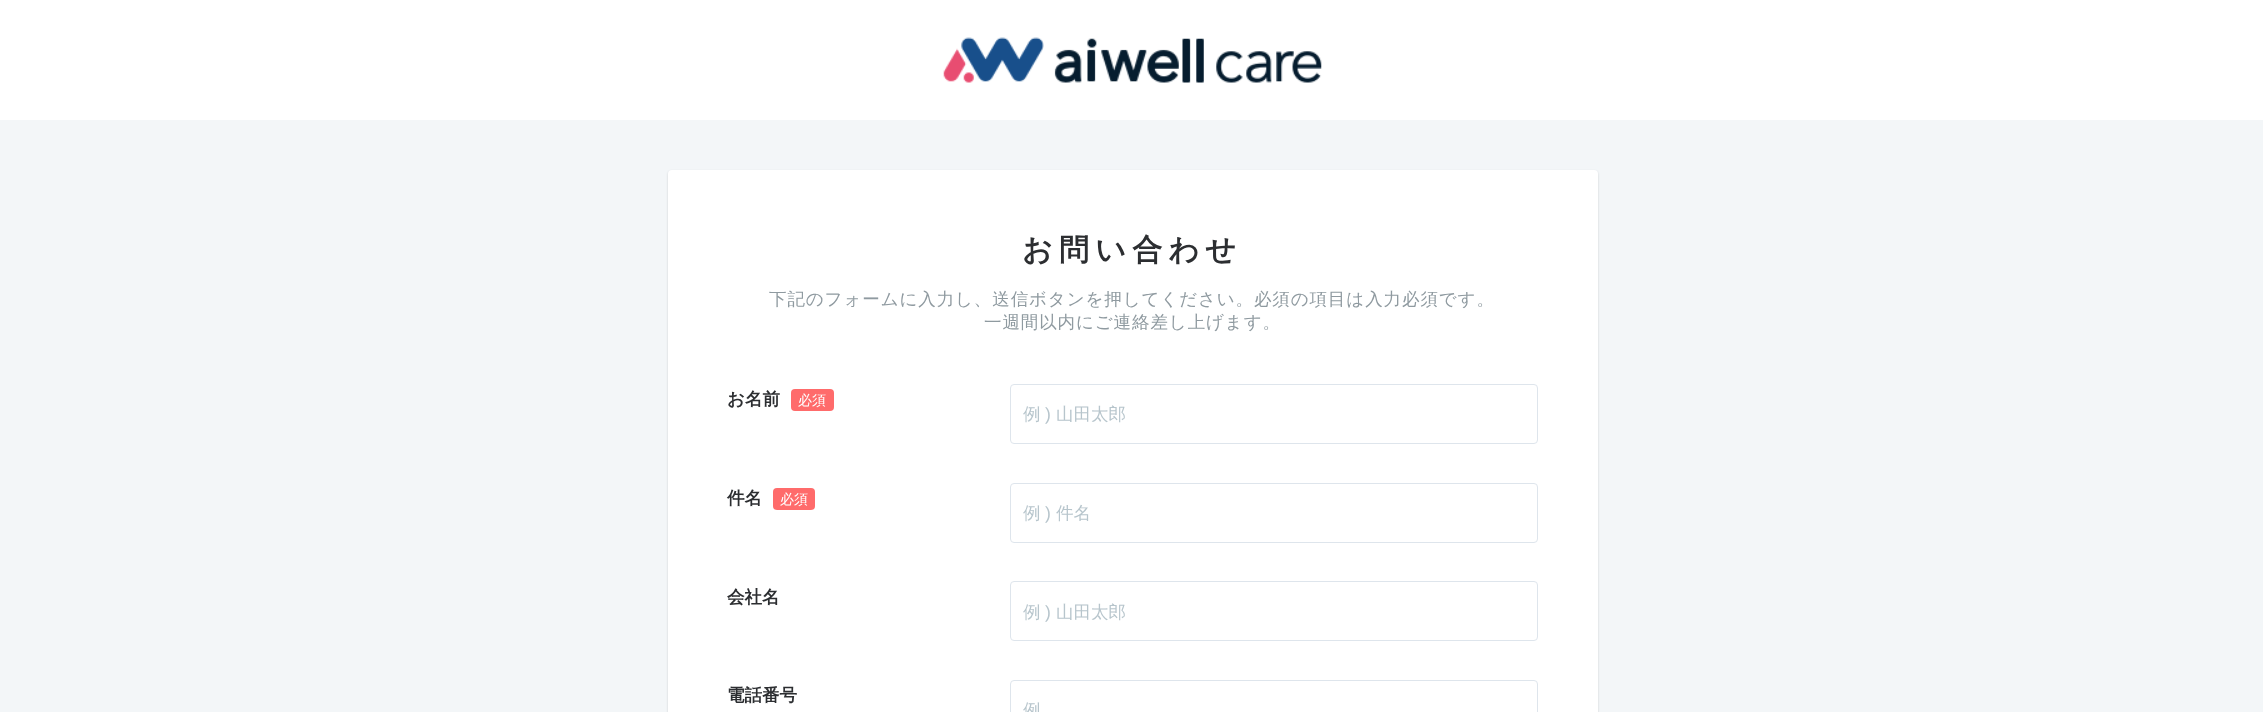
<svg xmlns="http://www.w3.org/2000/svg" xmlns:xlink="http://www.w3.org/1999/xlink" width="2263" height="712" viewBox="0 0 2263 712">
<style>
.cls-1{font:bold 30px WenQuanYi Zen Hei;letter-spacing:6.25px;fill:#2c2e31}
.cls-2{font:500 17.5px WenQuanYi Zen Hei;letter-spacing:0.9px;fill:#8f9aa0}
.cls-3{font:bold 17.5px WenQuanYi Zen Hei;fill:#2c2e31}
.cls-4{font:500 14px WenQuanYi Zen Hei;fill:#ffffff}
.cls-5{font:500 17.5px WenQuanYi Zen Hei;fill:#b7c5cc}
.cls-6{font:17.5px Liberation Sans;fill:#b7c5cc}
</style>
<rect width="100%" height="100%" fill="#ffffff"/>
<image xlink:href="image0.png" x="943" y="37" width="379" height="46"/>
<rect fill="#f3f6f8" x="0" y="120" width="2263" height="592"/>
<rect fill="#000000" fill-opacity="0.15" filter="blur(1px)" x="668" y="171" width="930" height="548" rx="4"/>
<rect fill="#ffffff" x="668" y="170" width="930" height="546" rx="4"/>
<rect fill="#ff6b6b" x="791" y="389" width="43" height="22" rx="4"/>
<rect fill="none" stroke="#dee5ec" x="1010.5" y="384.5" width="527" height="59" rx="3.5"/>
<rect fill="#ff6b6b" x="773" y="488" width="42" height="22" rx="4"/>
<rect fill="none" stroke="#dee5ec" x="1010.5" y="483.5" width="527" height="59" rx="3.5"/>
<rect fill="none" stroke="#dee5ec" x="1010.5" y="581.5" width="527" height="59" rx="3.5"/>
<rect fill="none" stroke="#dee5ec" x="1010.5" y="680.5" width="527" height="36" rx="3.5"/>
<text class="cls-1" x="1022" y="260">お問い合わせ</text>
<text class="cls-2" x="769" y="305">下記のフォームに入力し、送信ボタンを押してください。必須の項目は入力必須です。</text>
<text class="cls-2" x="984" y="328">一週間以内にご連絡差し上げます。</text>
<text class="cls-3" x="727" y="405">お名前</text>
<text class="cls-4" x="798" y="405">必須</text>
<text class="cls-5" x="1023" y="420">例</text>
<text class="cls-6" x="1045" y="420">)</text>
<text class="cls-5" x="1056" y="420">山田太郎</text>
<text class="cls-3" x="727" y="504">件名</text>
<text class="cls-4" x="780" y="504">必須</text>
<text class="cls-5" x="1023" y="519">例</text>
<text class="cls-6" x="1045" y="519">)</text>
<text class="cls-5" x="1056" y="519">件名</text>
<text class="cls-3" x="727" y="603">会社名</text>
<text class="cls-5" x="1023" y="618">例</text>
<text class="cls-6" x="1045" y="618">)</text>
<text class="cls-5" x="1056" y="618">山田太郎</text>
<text class="cls-3" x="727" y="701">電話番号</text>
<text class="cls-5" x="1023" y="716">例</text>
</svg>
